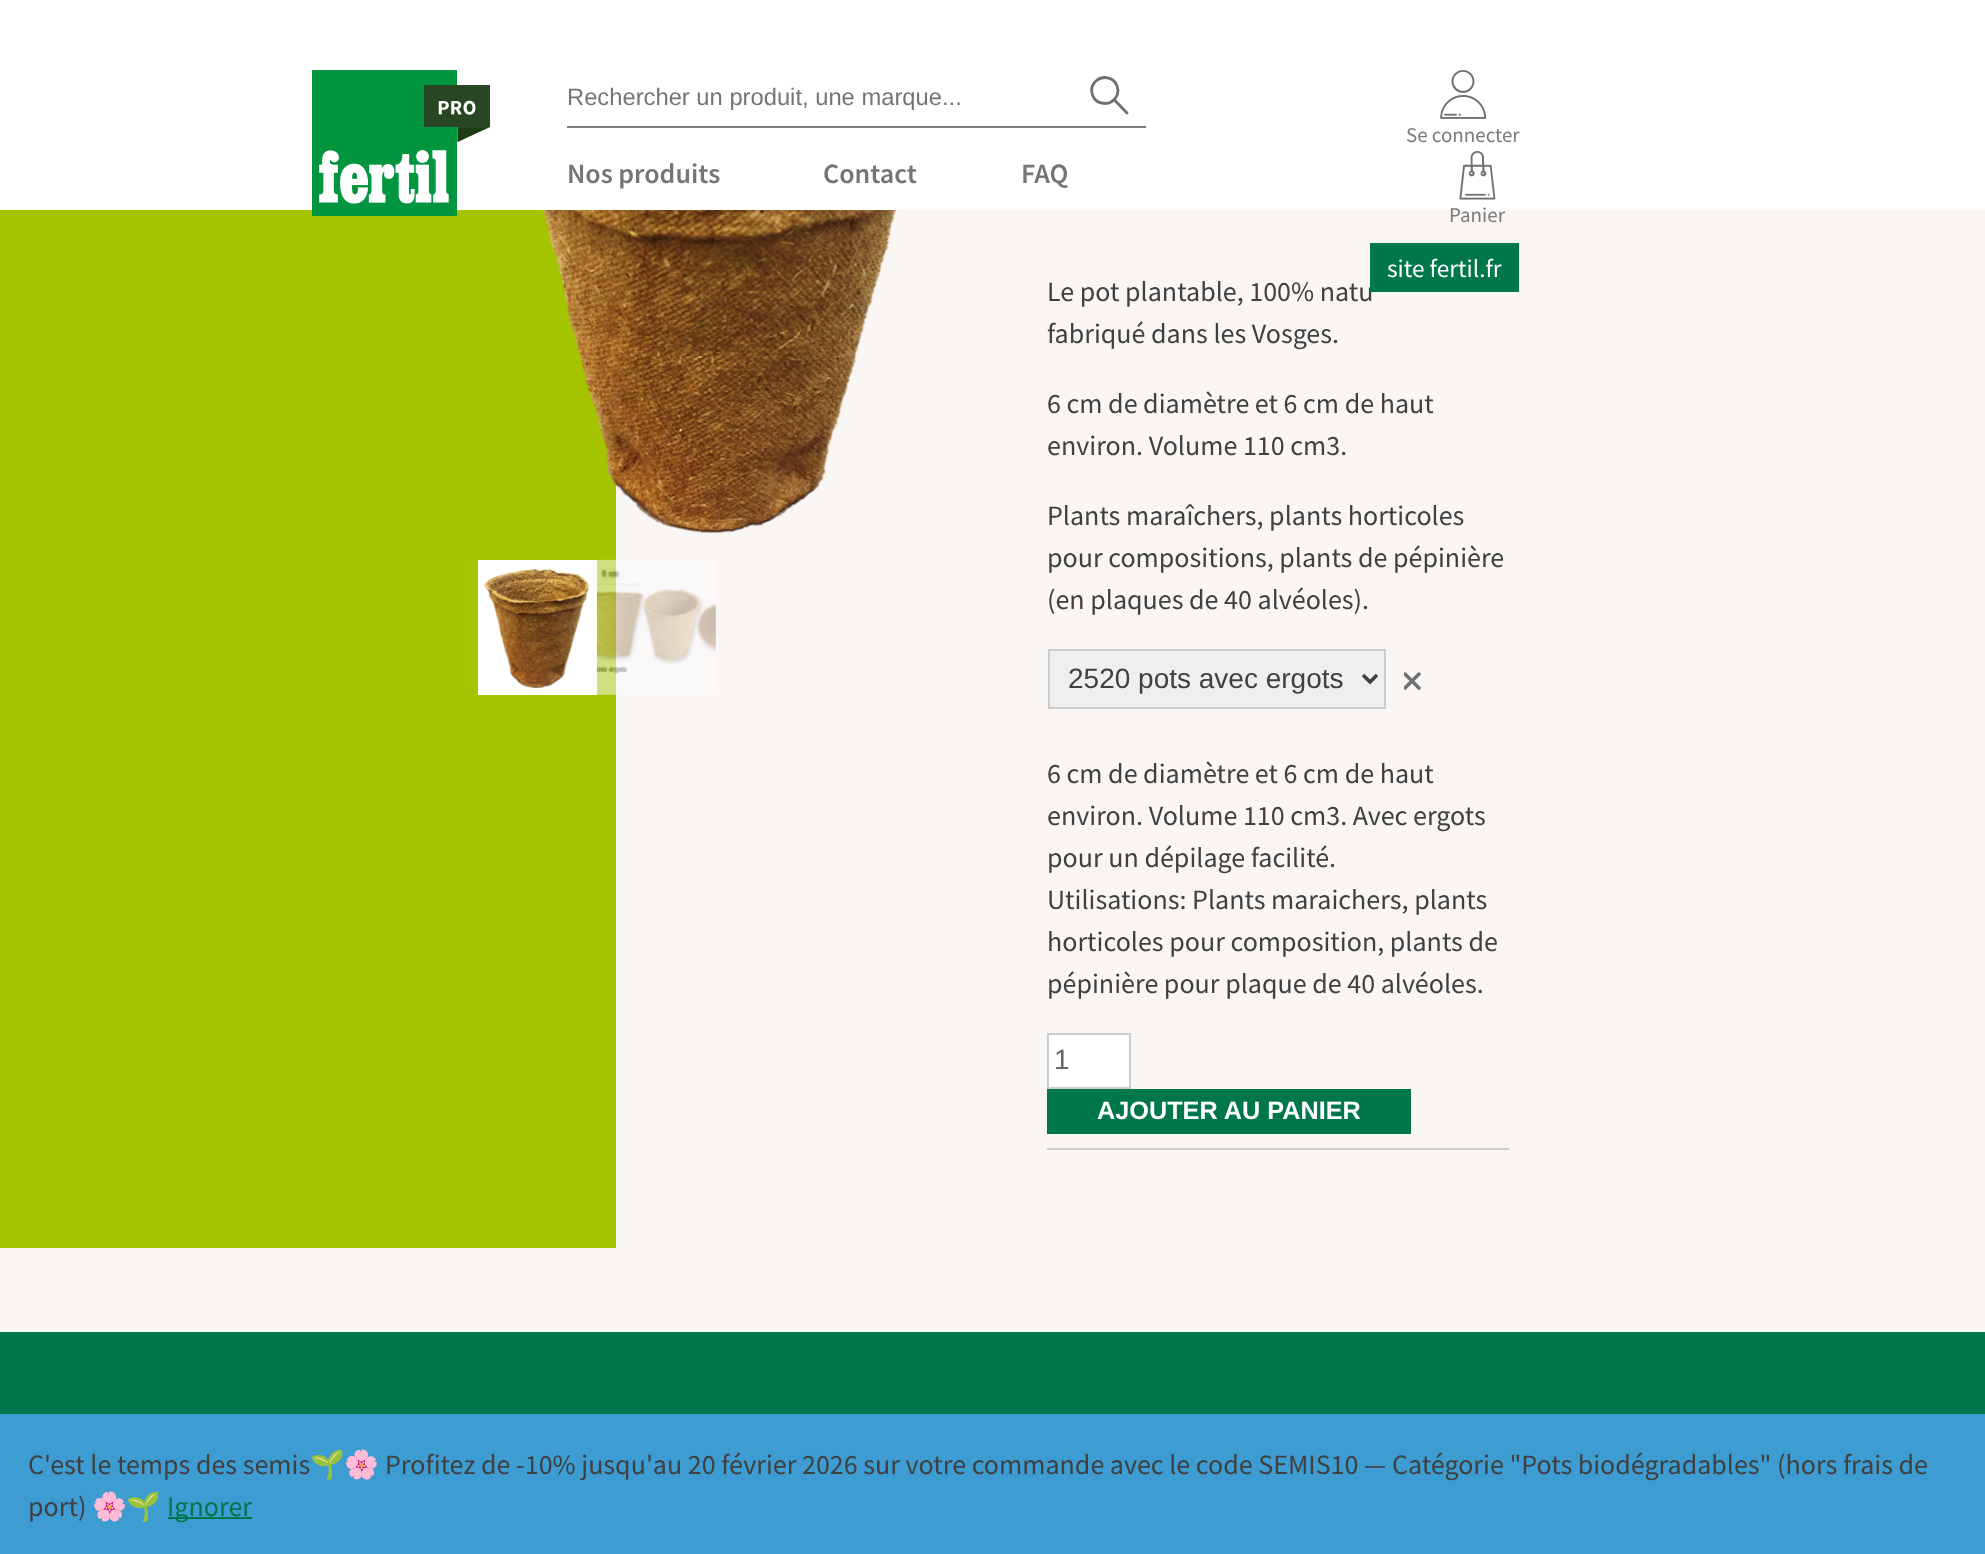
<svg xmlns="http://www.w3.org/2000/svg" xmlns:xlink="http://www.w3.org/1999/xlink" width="1985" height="1554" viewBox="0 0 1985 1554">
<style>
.cls-1{font:23.75px Liberation Sans;fill:#757575}
.cls-2{font:600 28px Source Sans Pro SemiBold;fill:#757575}
.cls-3{font:21px Source Sans Pro;fill:#7b7b7b}
.cls-4{font:28px Source Sans Pro;fill:#404040}
.cls-5{font:25.25px Source Sans Pro;fill:#ffffff}
.cls-6{font:28px Liberation Sans;fill:#404040}
.cls-7{font:28px Liberation Sans;fill:#666666}
.cls-8{font:bold 25.25px Liberation Sans;fill:#ffffff}
.cls-9{font:28px Noto Color Emoji;fill:#404040}
.cls-10{font:28px Source Sans Pro;fill:#00774b}
</style>
<defs>
<clipPath id="clip1"><rect x="1404" y="672" width="17" height="18"/></clipPath>
</defs>
<rect width="100%" height="100%" fill="#f9f6f3"/>
<rect fill="#ffffff" x="0" y="0" width="1985" height="210"/>
<rect fill="#a5c400" x="0" y="210" width="616" height="1038"/>
<image xlink:href="image0.png" x="312" y="70" width="178" height="146"/>
<rect fill="#7b7b7b" x="567" y="126" width="579" height="2"/>
<path fill="none" stroke="#707070" stroke-width="2.8" stroke-linecap="round" d="M1114.5 100L1127 113"/>
<path fill="none" stroke="#707070" stroke-width="2.8" d="M1105 77.5C1117 77.5 1122.5 92.5 1113 100.5C1111 102.5 1108 103.5 1105 103.5C1092.5 103.5 1087 88.5 1096.5 80.5C1099 78.5 1101.5 77.5 1105 77.5Z"/>
<image xlink:href="image1.png" x="1440" y="70" width="47" height="49"/>
<image xlink:href="image2.png" x="1459" y="151" width="37" height="49"/>
<rect fill="#fbf9f7" x="616" y="560" width="100" height="135"/>
<rect fill="#c0d64d" x="597" y="560" width="19" height="135"/>
<image xlink:href="image3.png" x="543" y="210" width="354" height="323"/>
<rect fill="#ffffff" x="478" y="560" width="119" height="135"/>
<image xlink:href="image4.png" x="484" y="568" width="106" height="121"/>
<image xlink:href="image5.png" x="596" y="559" width="120" height="136"/>
<rect fill="#efefef" stroke="#cccccc" stroke-width="2" x="1049" y="650" width="336" height="58"/>
<path fill="none" stroke="#404040" stroke-width="3.5" d="M1363 675L1370 682L1377 675"/>
<g clip-path="url(#clip1)">
<path fill="none" stroke="#707070" stroke-width="3.5" stroke-linecap="round" d="M1405 674L1419 688M1419 674L1405 688"/>
</g>
<rect fill="#ffffff" stroke="#cccccc" stroke-width="2" x="1048" y="1034" width="82" height="54"/>
<rect fill="#00774b" x="1047" y="1089" width="364" height="45"/>
<rect fill="#cccccc" x="1047" y="1148" width="462" height="2"/>
<rect fill="#00774b" x="0" y="1332" width="1985" height="82"/>
<rect fill="#3d9cd2" x="0" y="1414" width="1985" height="140"/>
<rect fill="#00774b" x="168" y="1517" width="84" height="2"/>
<text class="cls-1" x="567" y="105">Rechercher un produit, une marque...</text>
<text class="cls-2" x="567" y="183">Nos produits</text>
<text class="cls-2" x="823" y="183">Contact</text>
<text class="cls-2" x="1021" y="183">FAQ</text>
<text class="cls-3" x="1406" y="142">Se connecter</text>
<text class="cls-3" x="1449" y="222">Panier</text>
<text class="cls-4" x="1047" y="301">Le pot plantable, 100% natu</text>
<rect fill="#00774b" x="1370" y="243" width="149" height="49"/>
<text class="cls-5" x="1387" y="277">site fertil.fr</text>
<text class="cls-4" x="1047" y="343">fabriqué dans les Vosges.</text>
<text class="cls-4"><tspan x="1047" y="413">6 cm de diamètre et 6 cm de haut</tspan><tspan x="1047" y="455">environ. Volume 110 cm3.</tspan></text>
<text class="cls-4"><tspan x="1047" y="525">Plants maraîchers, plants horticoles</tspan><tspan x="1047" y="567">pour compositions, plants de pépinière</tspan><tspan x="1047" y="609">(en plaques de 40 alvéoles).</tspan></text>
<text class="cls-6" x="1068" y="688">2520 pots avec ergots</text>
<text class="cls-4"><tspan x="1047" y="783">6 cm de diamètre et 6 cm de haut</tspan><tspan x="1047" y="825">environ. Volume 110 cm3. Avec ergots</tspan><tspan x="1047" y="867">pour un dépilage facilité.</tspan><tspan x="1047" y="909">Utilisations: Plants maraichers, plants</tspan><tspan x="1047" y="951">horticoles pour composition, plants de</tspan><tspan x="1047" y="993">pépinière pour plaque de 40 alvéoles.</tspan></text>
<text class="cls-7" x="1054" y="1069">1</text>
<text class="cls-8" x="1097" y="1119">AJOUTER AU PANIER</text>
<text class="cls-4" x="28" y="1474">C'est le temps des semis</text>
<text class="cls-9" x="310" y="1474">🌱🌸</text>
<text class="cls-4" x="385" y="1474">Profitez de -10% jusqu'au 20 février 2026 sur votre commande avec le code SEMIS10 — Catégorie "Pots biodégradables" (hors frais de</text>
<text class="cls-4" x="28" y="1516">port)</text>
<text class="cls-9" x="92" y="1516">🌸🌱</text>
<text class="cls-10" x="167" y="1516">Ignorer</text>
</svg>
